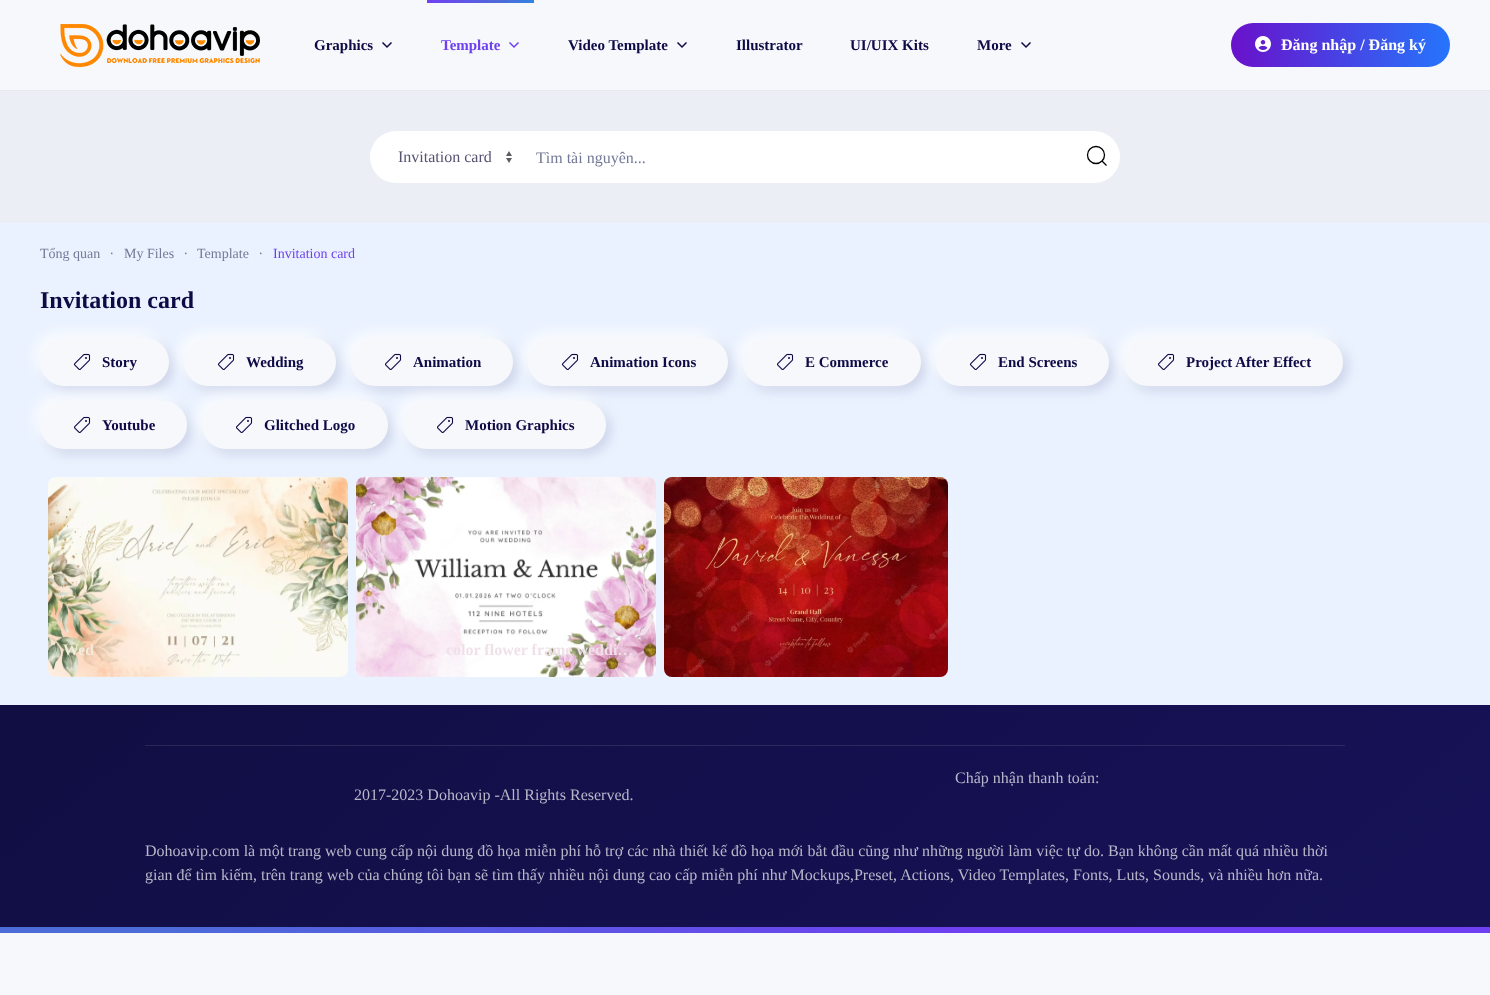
<svg xmlns="http://www.w3.org/2000/svg" xmlns:xlink="http://www.w3.org/1999/xlink" width="1490" height="995" viewBox="0 0 1490 995">
<style>
.cls-1{font:bold 15px Liberation Serif;fill:#0d0a46}
.cls-2{font:bold 15px Liberation Serif;fill:#6f40f1}
.cls-3{font:bold 16px Liberation Serif;fill:#ffffff}
.cls-4{font:16px Liberation Serif;fill:#555371}
.cls-5{font:16px Liberation Serif;fill:#747a96}
.cls-6{font:14px Liberation Serif;fill:#747a96}
.cls-7{font:14px Liberation Serif;fill:#6f40f1}
.cls-8{font:bold 24px Liberation Serif;fill:#0d0a46}
.cls-9{font:bold 16px Liberation Serif;fill:#f3eadc}
.cls-10{font:bold 16px Liberation Serif;fill:#f0e1e8}
.cls-11{font:16px Liberation Serif;fill:#b8b7c9}
</style>
<defs>
<linearGradient id="g1" gradientUnits="userSpaceOnUse" x1="427" y1="1.5" x2="534" y2="1.5"><stop offset="0" stop-color="#7141f1"/><stop offset="0.7" stop-color="#4d6bd8"/><stop offset="1" stop-color="#3183e2"/></linearGradient>
<linearGradient id="g2" gradientUnits="userSpaceOnUse" x1="1231" y1="45" x2="1450" y2="45"><stop offset="0" stop-color="#6a11cb"/><stop offset="1" stop-color="#2575fc"/></linearGradient>
<linearGradient id="g3" gradientUnits="userSpaceOnUse" x1="1107" y1="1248" x2="383" y2="384"><stop offset="0" stop-color="#171258"/><stop offset="1" stop-color="#110e43"/></linearGradient>
<linearGradient id="g4" gradientUnits="userSpaceOnUse" x1="1107" y1="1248" x2="383" y2="384"><stop offset="0" stop-color="#2e2a69"/><stop offset="1" stop-color="#292656"/></linearGradient>
</defs>
<rect width="100%" height="100%" fill="#f7f8fc"/>
<image xlink:href="image0.png" x="0" y="927" width="1490" height="6"/>
<rect fill="#e5e9ed" x="0" y="90" width="1490" height="1"/>
<image xlink:href="image1.png" x="60" y="24" width="200" height="43"/>
<path fill="none" stroke="#0d0a46" stroke-width="1.5" d="M382.5 42.5L387 47L391.5 42.5"/>
<rect fill="url(#g1)" x="427" y="0" width="107" height="3"/>
<path fill="none" stroke="#6f40f1" stroke-width="1.5" d="M509.5 42.5L514 47L518.5 42.5"/>
<path fill="none" stroke="#0d0a46" stroke-width="1.5" d="M677.5 42.5L682 47L686.5 42.5"/>
<path fill="none" stroke="#0d0a46" stroke-width="1.5" d="M1021.5 42.5L1026 47L1030.5 42.5"/>
<rect fill="url(#g2)" x="1231" y="23" width="219" height="44" rx="22"/>
<image xlink:href="image2.png" x="1255" y="36" width="16" height="16"/>
<rect fill="#eceef6" x="0" y="91" width="1490" height="132"/>
<rect fill="#ffffff" x="370" y="131" width="750" height="52" rx="26"/>
<image xlink:href="image3.png" x="506" y="151" width="6" height="12"/>
<circle fill="none" stroke="#000000" stroke-width="1.3" cx="1096" cy="155" r="8.5"/>
<path fill="none" stroke="#000000" stroke-width="1.3" d="M1102 161L1106.5 165.5Z"/>
<rect fill="#eaf2ff" x="0" y="223" width="1490" height="482"/>
<rect fill="#39417c" fill-opacity="0.2" filter="blur(6px)" x="44" y="342" width="129" height="48" rx="24"/>
<rect fill="#ffffff" fill-opacity="0.9" filter="blur(7.5px)" x="35" y="333" width="129" height="48" rx="24"/>
<rect fill="#f7f8fc" x="40" y="338" width="129" height="48" rx="24"/>
<image xlink:href="image4.png" x="74" y="353" width="17" height="17"/>
<rect fill="#39417c" fill-opacity="0.2" filter="blur(6px)" x="188" y="342" width="152" height="48" rx="24"/>
<rect fill="#ffffff" fill-opacity="0.9" filter="blur(7.5px)" x="179" y="333" width="152" height="48" rx="24"/>
<rect fill="#f7f8fc" x="184" y="338" width="152" height="48" rx="24"/>
<image xlink:href="image4.png" x="218" y="353" width="17" height="17"/>
<rect fill="#39417c" fill-opacity="0.2" filter="blur(6px)" x="355" y="342" width="162" height="48" rx="24"/>
<rect fill="#ffffff" fill-opacity="0.9" filter="blur(7.5px)" x="346" y="333" width="162" height="48" rx="24"/>
<rect fill="#f7f8fc" x="351" y="338" width="162" height="48" rx="24"/>
<image xlink:href="image4.png" x="385" y="353" width="17" height="17"/>
<rect fill="#39417c" fill-opacity="0.2" filter="blur(6px)" x="532" y="342" width="200" height="48" rx="24"/>
<rect fill="#ffffff" fill-opacity="0.9" filter="blur(7.5px)" x="523" y="333" width="200" height="48" rx="24"/>
<rect fill="#f7f8fc" x="528" y="338" width="200" height="48" rx="24"/>
<image xlink:href="image4.png" x="562" y="353" width="17" height="17"/>
<rect fill="#39417c" fill-opacity="0.2" filter="blur(6px)" x="747" y="342" width="178" height="48" rx="24"/>
<rect fill="#ffffff" fill-opacity="0.9" filter="blur(7.5px)" x="738" y="333" width="178" height="48" rx="24"/>
<rect fill="#f7f8fc" x="743" y="338" width="178" height="48" rx="24"/>
<image xlink:href="image4.png" x="777" y="353" width="17" height="17"/>
<rect fill="#39417c" fill-opacity="0.2" filter="blur(6px)" x="940" y="342" width="173" height="48" rx="24"/>
<rect fill="#ffffff" fill-opacity="0.9" filter="blur(7.5px)" x="931" y="333" width="173" height="48" rx="24"/>
<rect fill="#f7f8fc" x="936" y="338" width="173" height="48" rx="24"/>
<image xlink:href="image4.png" x="970" y="353" width="17" height="17"/>
<rect fill="#39417c" fill-opacity="0.2" filter="blur(6px)" x="1128" y="342" width="219" height="48" rx="24"/>
<rect fill="#ffffff" fill-opacity="0.9" filter="blur(7.5px)" x="1119" y="333" width="219" height="48" rx="24"/>
<rect fill="#f7f8fc" x="1124" y="338" width="219" height="48" rx="24"/>
<image xlink:href="image4.png" x="1158" y="353" width="17" height="17"/>
<rect fill="#39417c" fill-opacity="0.2" filter="blur(6px)" x="44" y="405" width="147" height="48" rx="24"/>
<rect fill="#ffffff" fill-opacity="0.9" filter="blur(7.5px)" x="35" y="396" width="147" height="48" rx="24"/>
<rect fill="#f7f8fc" x="40" y="401" width="147" height="48" rx="24"/>
<image xlink:href="image4.png" x="74" y="416" width="17" height="17"/>
<rect fill="#39417c" fill-opacity="0.2" filter="blur(6px)" x="206" y="405" width="186" height="48" rx="24"/>
<rect fill="#ffffff" fill-opacity="0.9" filter="blur(7.5px)" x="197" y="396" width="186" height="48" rx="24"/>
<rect fill="#f7f8fc" x="202" y="401" width="186" height="48" rx="24"/>
<image xlink:href="image4.png" x="236" y="416" width="17" height="17"/>
<rect fill="#39417c" fill-opacity="0.2" filter="blur(6px)" x="407" y="405" width="203" height="48" rx="24"/>
<rect fill="#ffffff" fill-opacity="0.9" filter="blur(7.5px)" x="398" y="396" width="203" height="48" rx="24"/>
<rect fill="#f7f8fc" x="403" y="401" width="203" height="48" rx="24"/>
<image xlink:href="image4.png" x="437" y="416" width="17" height="17"/>
<image xlink:href="image5.png" x="48" y="477" width="300" height="200"/>
<image xlink:href="image6.png" x="356" y="477" width="300" height="200"/>
<image xlink:href="image7.png" x="664" y="477" width="284" height="200"/>
<rect fill="url(#g3)" x="0" y="705" width="1490" height="222"/>
<rect fill="url(#g4)" x="145" y="745" width="1200" height="1"/>
<text class="cls-1" x="314" y="50">Graphics</text>
<text class="cls-2" x="441" y="50">Template</text>
<text class="cls-1" x="568" y="50">Video Template</text>
<text class="cls-1" x="736" y="50">Illustrator</text>
<text class="cls-1" x="850" y="50">UI/UIX Kits</text>
<text class="cls-1" x="977" y="50">More</text>
<text class="cls-3" x="1281" y="50">Đăng nhập / Đăng ký</text>
<text class="cls-4" x="398" y="162">Invitation card</text>
<text class="cls-5" x="536" y="163">Tìm tài nguyên...</text>
<text class="cls-6" x="40" y="258">Tổng quan</text>
<text class="cls-6" x="110" y="258">∙</text>
<text class="cls-6" x="124" y="258">My Files</text>
<text class="cls-6" x="184" y="258">∙</text>
<text class="cls-6" x="197" y="258">Template</text>
<text class="cls-6" x="259" y="258">∙</text>
<text class="cls-7" x="273" y="258">Invitation card</text>
<text class="cls-8" x="40" y="308">Invitation card</text>
<text class="cls-1" x="102" y="367">Story</text>
<text class="cls-1" x="246" y="367">Wedding</text>
<text class="cls-1" x="413" y="367">Animation</text>
<text class="cls-1" x="590" y="367">Animation Icons</text>
<text class="cls-1" x="805" y="367">E Commerce</text>
<text class="cls-1" x="998" y="367">End Screens</text>
<text class="cls-1" x="1186" y="367">Project After Effect</text>
<text class="cls-1" x="102" y="430">Youtube</text>
<text class="cls-1" x="264" y="430">Glitched Logo</text>
<text class="cls-1" x="465" y="430">Motion Graphics</text>
<text class="cls-9" x="63" y="655">Wed</text>
<text class="cls-10" x="446" y="655">color flower frame weddi…</text>
<text class="cls-11" x="955" y="783">Chấp nhận thanh toán:</text>
<text class="cls-11" x="354" y="800">2017-2023 Dohoavip -All Rights Reserved.</text>
<text class="cls-11"><tspan x="145" y="856">Dohoavip.com là một trang web cung cấp nội dung đồ họa miễn phí hỗ trợ các nhà thiết kế đồ họa mới bắt đầu cũng như những người làm việc tự do. Bạn không cần mất quá nhiều thời</tspan><tspan x="145" y="880">gian để tìm kiếm, trên trang web của chúng tôi bạn sẽ tìm thấy nhiều nội dung cao cấp miễn phí như Mockups,Preset, Actions, Video Templates, Fonts, Luts, Sounds, và nhiều hơn nữa.</tspan></text>
</svg>
